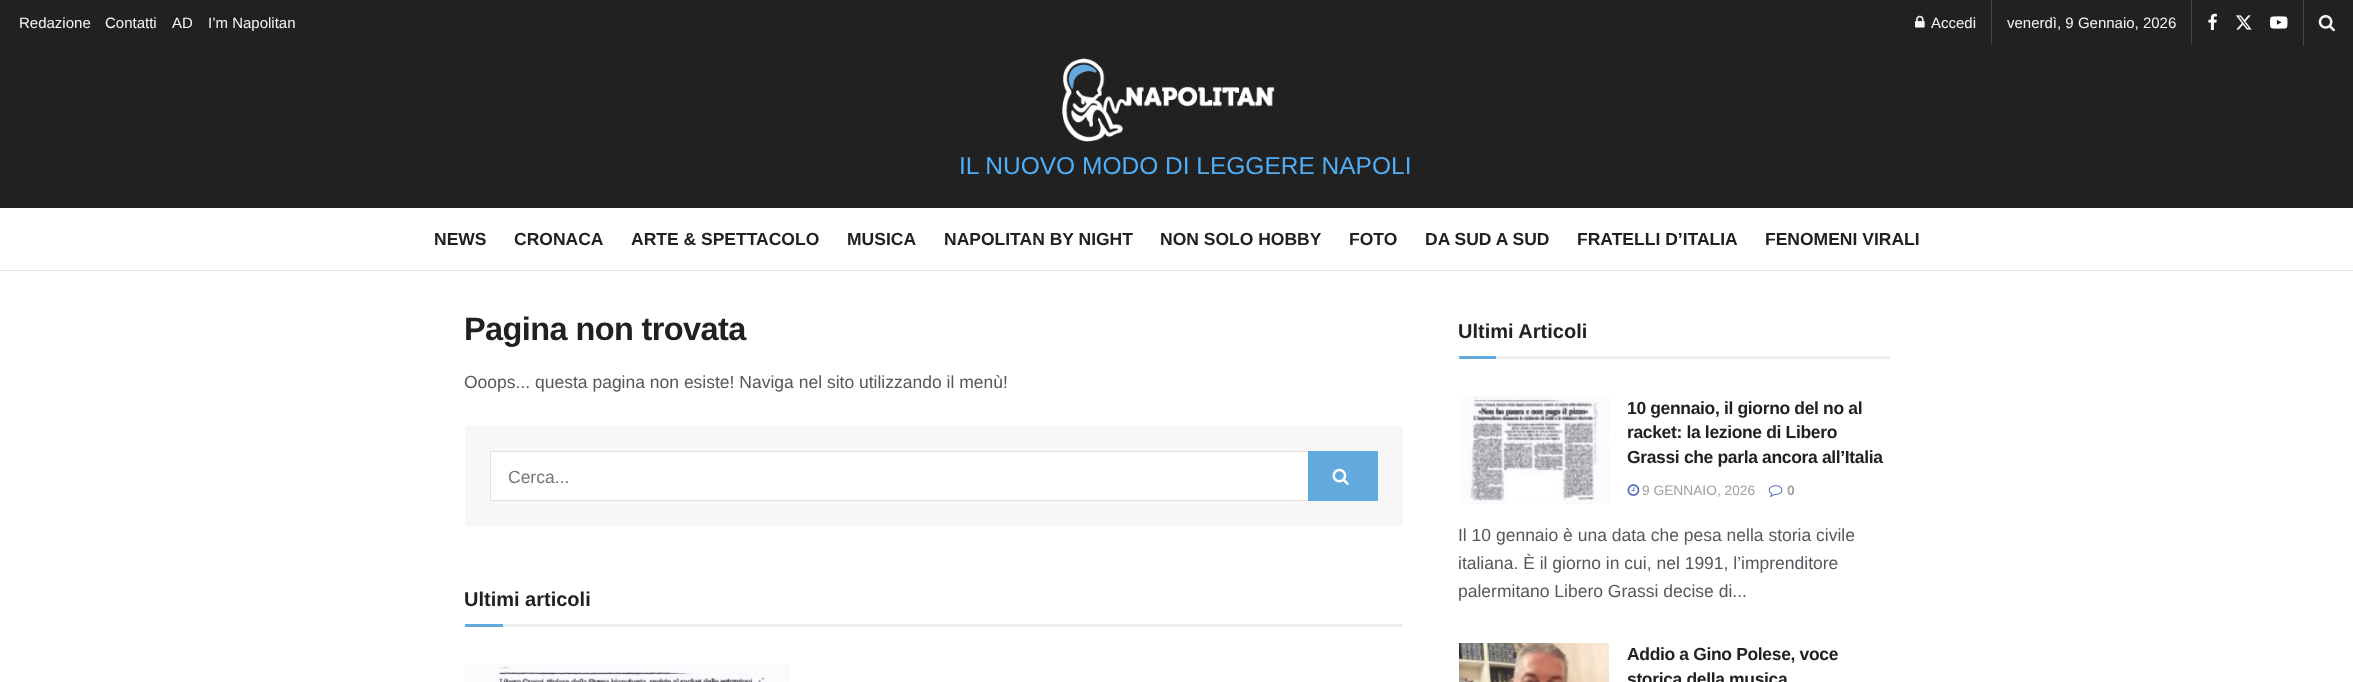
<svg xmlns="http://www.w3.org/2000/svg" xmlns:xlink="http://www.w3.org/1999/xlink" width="2353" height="682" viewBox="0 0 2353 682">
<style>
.cls-1{font:15px Liberation Sans;fill:#f5f5f5}
.cls-2{font:24.5px Liberation Sans;fill:#50aef6}
.cls-3{font:bold 17.5px Liberation Sans;fill:#212121}
.cls-4{font:bold 32.5px Liberation Sans;letter-spacing:-0.6px;fill:#212121}
.cls-5{font:17.5px Liberation Sans;fill:#53585c}
.cls-6{font:17.5px Liberation Sans;fill:#757575}
.cls-7{font:bold 20px Liberation Sans;fill:#212121}
.cls-8{font:bold 17.5px Liberation Sans;letter-spacing:-0.35px;fill:#212121}
.cls-9{font:13.75px Liberation Sans;fill:#a0a0a0}
.cls-10{font:bold 13.75px Liberation Sans;fill:#a0a0a0}
</style>
<rect width="100%" height="100%" fill="#ffffff"/>
<rect fill="#212121" x="0" y="0" width="2353" height="208"/>
<rect fill="#424242" x="1991" y="0" width="1" height="45"/>
<image xlink:href="image0.png" x="1915" y="15" width="10" height="13"/>
<rect fill="#424242" x="2191" y="0" width="1" height="45"/>
<rect fill="#424242" x="2303" y="0" width="1" height="46"/>
<image xlink:href="image1.png" x="2208" y="13" width="9" height="17"/>
<image xlink:href="image2.png" x="2236" y="15" width="16" height="15"/>
<image xlink:href="image3.png" x="2270" y="16" width="18" height="13"/>
<image xlink:href="image4.png" x="2318" y="15" width="17" height="17"/>
<image xlink:href="image5.png" x="1062" y="58" width="213" height="84"/>
<rect fill="#e8e8e8" x="0" y="270" width="2353" height="1"/>
<rect fill="#f7f7f7" x="465" y="426" width="938" height="100"/>
<rect fill="#ffffff" x="491" y="452" width="817" height="48"/>
<rect fill="none" stroke="#e0e0e0" x="490.5" y="451.5" width="887" height="49"/>
<rect fill="#62a9de" x="1308" y="451" width="70" height="50"/>
<image xlink:href="image6.png" x="1332" y="468" width="17" height="17"/>
<rect fill="#eeeeee" x="503" y="624" width="900" height="3"/>
<rect fill="#62a9de" x="465" y="624" width="38" height="3"/>
<image xlink:href="image7.png" x="465" y="664" width="325" height="18"/>
<rect fill="#eeeeee" x="1496" y="356" width="394" height="3"/>
<rect fill="#62a9de" x="1459" y="356" width="37" height="3"/>
<rect fill="#f7f7f7" x="1459" y="396" width="150" height="108"/>
<image xlink:href="image9.png" x="1459" y="503" width="3" height="1"/>
<image xlink:href="image8.png" x="1459" y="396" width="150" height="108"/>
<image xlink:href="image10.png" x="1627" y="484" width="13" height="12"/>
<image xlink:href="image11.png" x="1768" y="485" width="15" height="12"/>
<image xlink:href="image12.png" x="1459" y="643" width="150" height="39"/>
<text class="cls-1" x="19" y="28">Redazione</text>
<text class="cls-1" x="105" y="28">Contatti</text>
<text class="cls-1" x="172" y="28">AD</text>
<text class="cls-1" x="208" y="28">I’m Napolitan</text>
<text class="cls-1" x="1931" y="28">Accedi</text>
<text class="cls-1" x="2007" y="28">venerdì, 9 Gennaio, 2026</text>
<text class="cls-2" x="959" y="174">IL NUOVO MODO DI LEGGERE NAPOLI</text>
<text class="cls-3" x="434" y="245">NEWS</text>
<text class="cls-3" x="514" y="245">CRONACA</text>
<text class="cls-3" x="631" y="245">ARTE &amp; SPETTACOLO</text>
<text class="cls-3" x="847" y="245">MUSICA</text>
<text class="cls-3" x="944" y="245">NAPOLITAN BY NIGHT</text>
<text class="cls-3" x="1160" y="245">NON SOLO HOBBY</text>
<text class="cls-3" x="1349" y="245">FOTO</text>
<text class="cls-3" x="1425" y="245">DA SUD A SUD</text>
<text class="cls-3" x="1577" y="245">FRATELLI D’ITALIA</text>
<text class="cls-3" x="1765" y="245">FENOMENI VIRALI</text>
<text class="cls-4" x="464" y="340">Pagina non trovata</text>
<text class="cls-5" x="464" y="388">Ooops... questa pagina non esiste! Naviga nel sito utilizzando il menù!</text>
<text class="cls-6" x="508" y="483">Cerca...</text>
<text class="cls-7" x="464" y="606">Ultimi articoli</text>
<text class="cls-7" x="1458" y="338">Ultimi Articoli</text>
<text class="cls-8"><tspan x="1627" y="414">10 gennaio, il giorno del no al</tspan><tspan x="1627" y="438">racket: la lezione di Libero</tspan><tspan x="1627" y="463">Grassi che parla ancora all’Italia</tspan></text>
<text class="cls-9" x="1642" y="495">9 GENNAIO, 2026</text>
<text class="cls-10" x="1787" y="495">0</text>
<text class="cls-5"><tspan x="1458" y="541">Il 10 gennaio è una data che pesa nella storia civile</tspan><tspan x="1458" y="569">italiana. È il giorno in cui, nel 1991, l’imprenditore</tspan><tspan x="1458" y="597">palermitano Libero Grassi decise di...</tspan></text>
<text class="cls-8"><tspan x="1627" y="660">Addio a Gino Polese, voce</tspan><tspan x="1627" y="685">storica della musica</tspan></text>
</svg>
